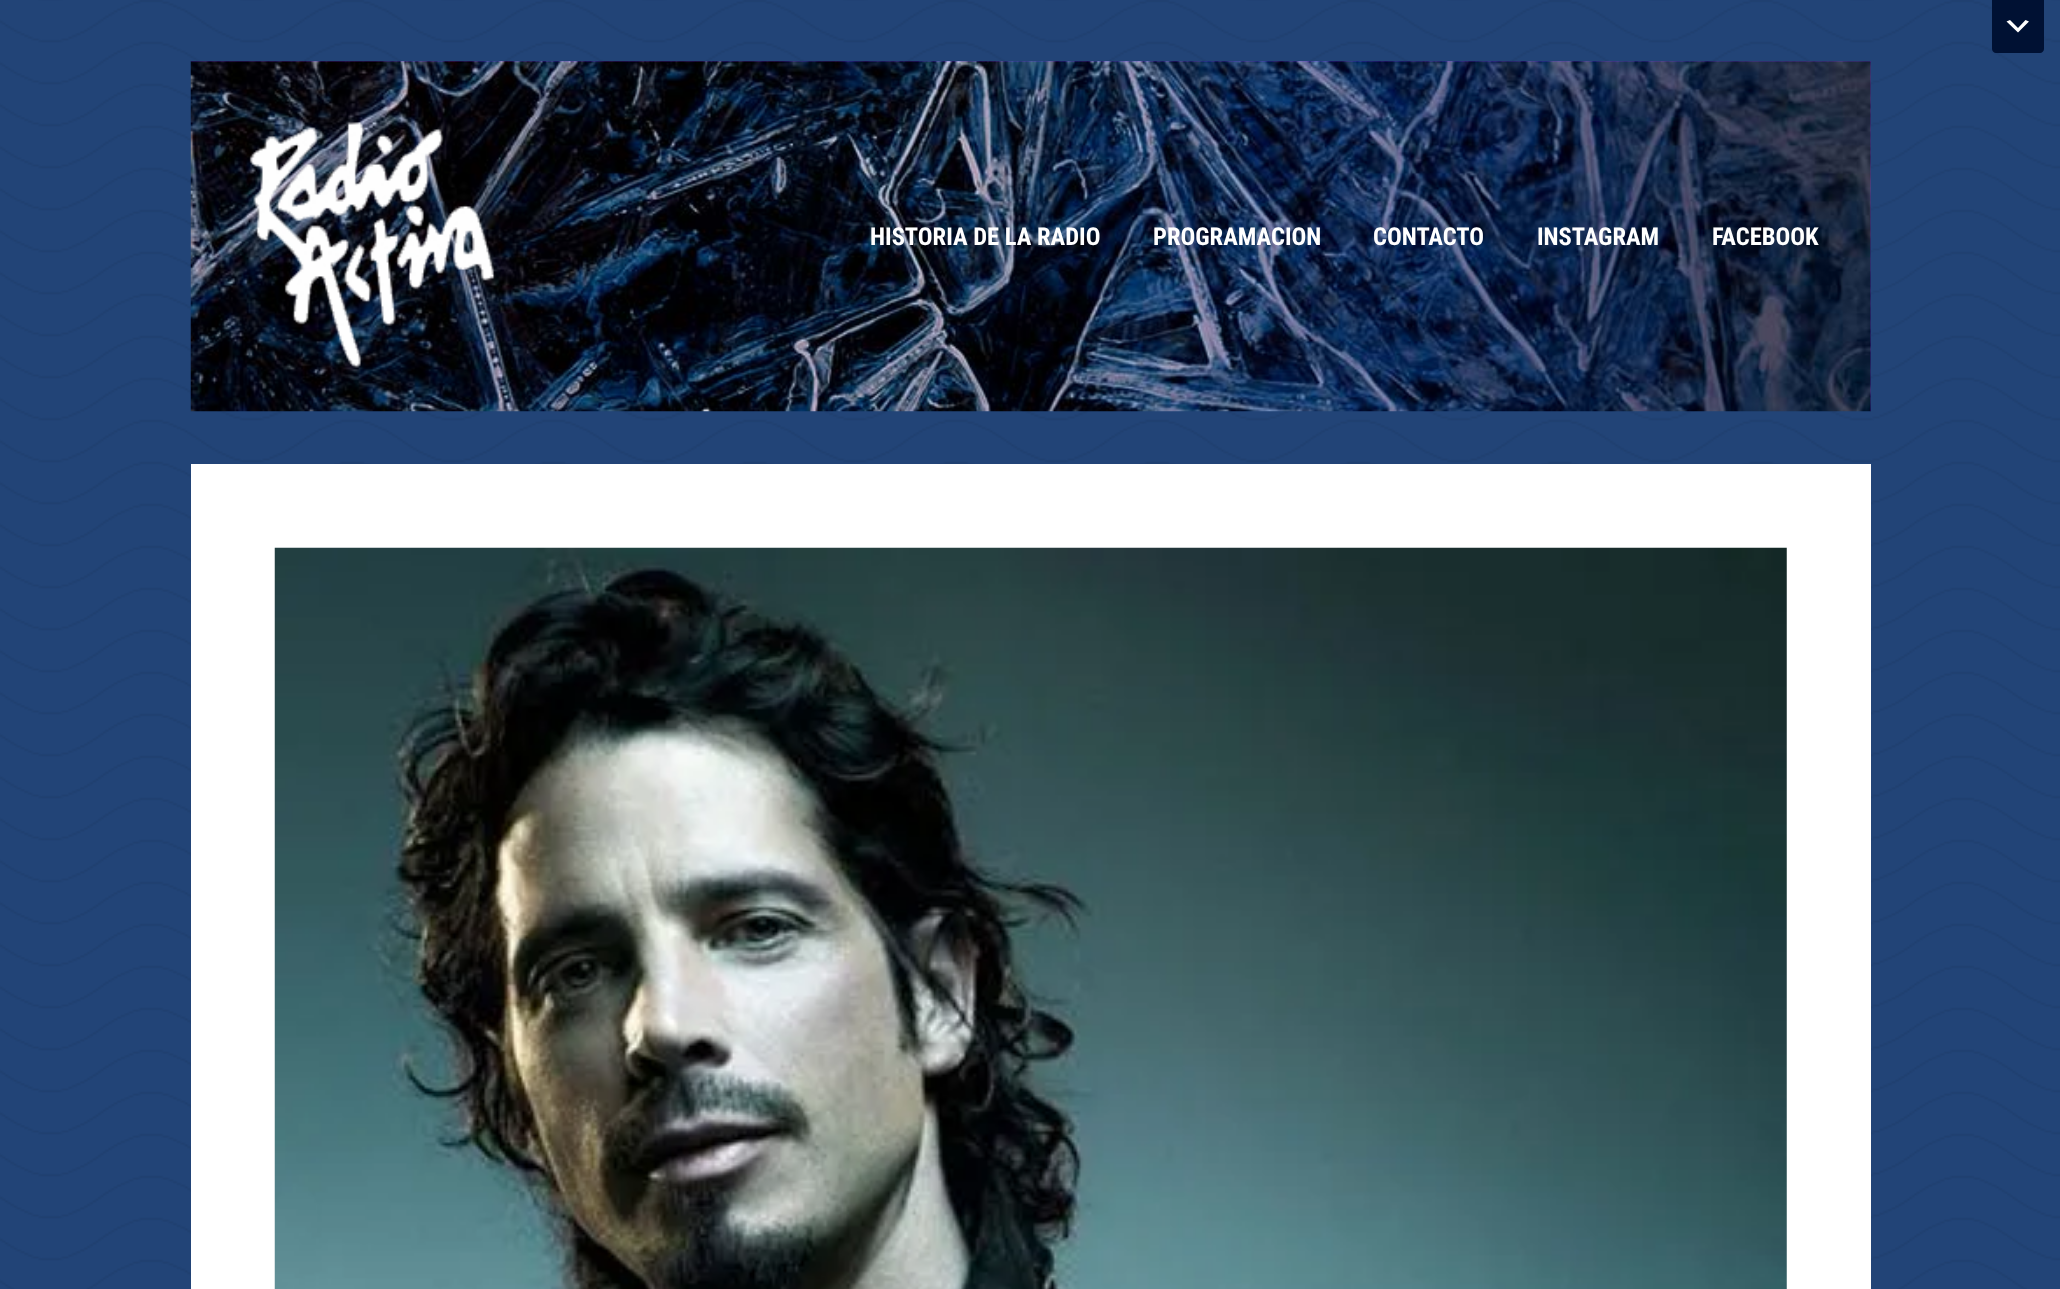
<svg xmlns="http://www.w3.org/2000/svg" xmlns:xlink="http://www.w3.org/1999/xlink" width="2060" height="1289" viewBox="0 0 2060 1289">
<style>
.cls-1{font:bold 24.5px Roboto Condensed;fill:#ffffff}
</style>
<rect width="100%" height="100%" fill="#224477"/>
<image xlink:href="image0.png" x="0" y="0" width="2060" height="1289"/>
<path fill="#001133" d="M1992 0H2044V49C2044 51 2042 53 2040 53H1996C1994 53 1992 51 1992 49Z"/>
<path fill="#ffffff" d="M2010 20L2018 28L2025.5 20L2029 21.5L2018 32.5L2006.5 21.5Z"/>
<rect fill="#6633dd" x="191" y="61" width="1680" height="350"/>
<image xlink:href="image1.png" x="190" y="61" width="1681" height="351"/>
<image xlink:href="image2.png" x="249" y="122" width="247" height="246"/>
<rect fill="#ffffff" x="191" y="464" width="1680" height="825"/>
<image xlink:href="image3.png" x="274" y="547" width="1513" height="742"/>
<text class="cls-1" x="870" y="245">HISTORIA DE LA RADIO</text>
<text class="cls-1" x="1153" y="245">PROGRAMACION</text>
<text class="cls-1" x="1373" y="245">CONTACTO</text>
<text class="cls-1" x="1537" y="245">INSTAGRAM</text>
<text class="cls-1" x="1712" y="245">FACEBOOK</text>
</svg>
